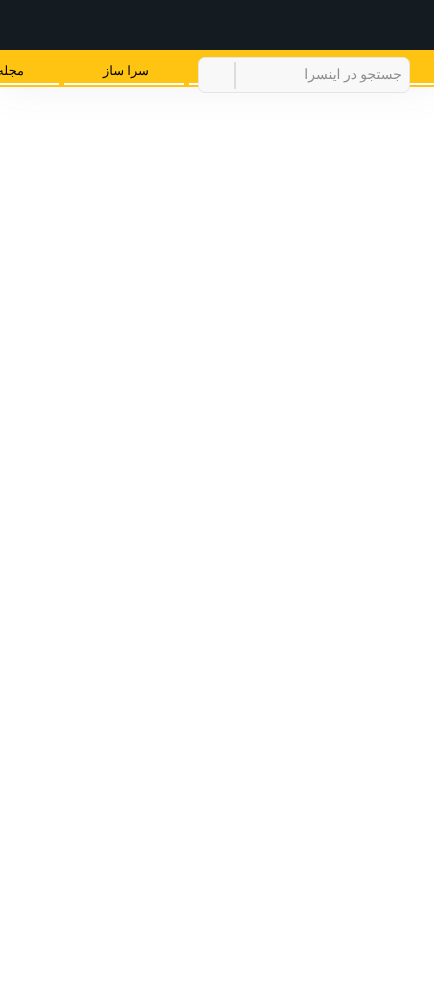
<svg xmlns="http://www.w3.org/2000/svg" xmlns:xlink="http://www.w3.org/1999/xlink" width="434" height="984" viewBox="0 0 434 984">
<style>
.cls-1{font:14px DejaVu Sans;direction:rtl;fill:#8e8e8e}
.cls-2{font:13px DejaVu Sans;direction:rtl;fill:#000000}
</style>
<rect width="100%" height="100%" fill="#ffffff"/>
<rect fill="#523f69" fill-opacity="0.1" filter="blur(20px)" x="0" y="0" width="434" height="82"/>
<rect fill="#141b21" x="0" y="0" width="434" height="50"/>
<rect fill="#ffc412" x="0" y="50" width="434" height="37"/>
<rect fill="#f8f8f8" stroke="#e5e5e5" x="198.5" y="57.5" width="211" height="35" rx="6.5"/>
<rect fill="#dddddd" x="234" y="62" width="2" height="27"/>
<rect fill="#ffffff" x="64" y="83" width="120" height="2"/>
<rect fill="#ffffff" x="0" y="83" width="59" height="2"/>
<rect fill="#ffffff" x="410" y="83" width="24" height="2"/>
<rect fill="#ffffff" x="189" y="83" width="9" height="2"/>
<text class="cls-1" x="402" y="79" word-spacing="-1">جستجو در اینسرا</text>
<text class="cls-2" x="149" y="75" word-spacing="-1">سرا ساز</text>
<text class="cls-2" x="24" y="75">مجله</text>
</svg>
